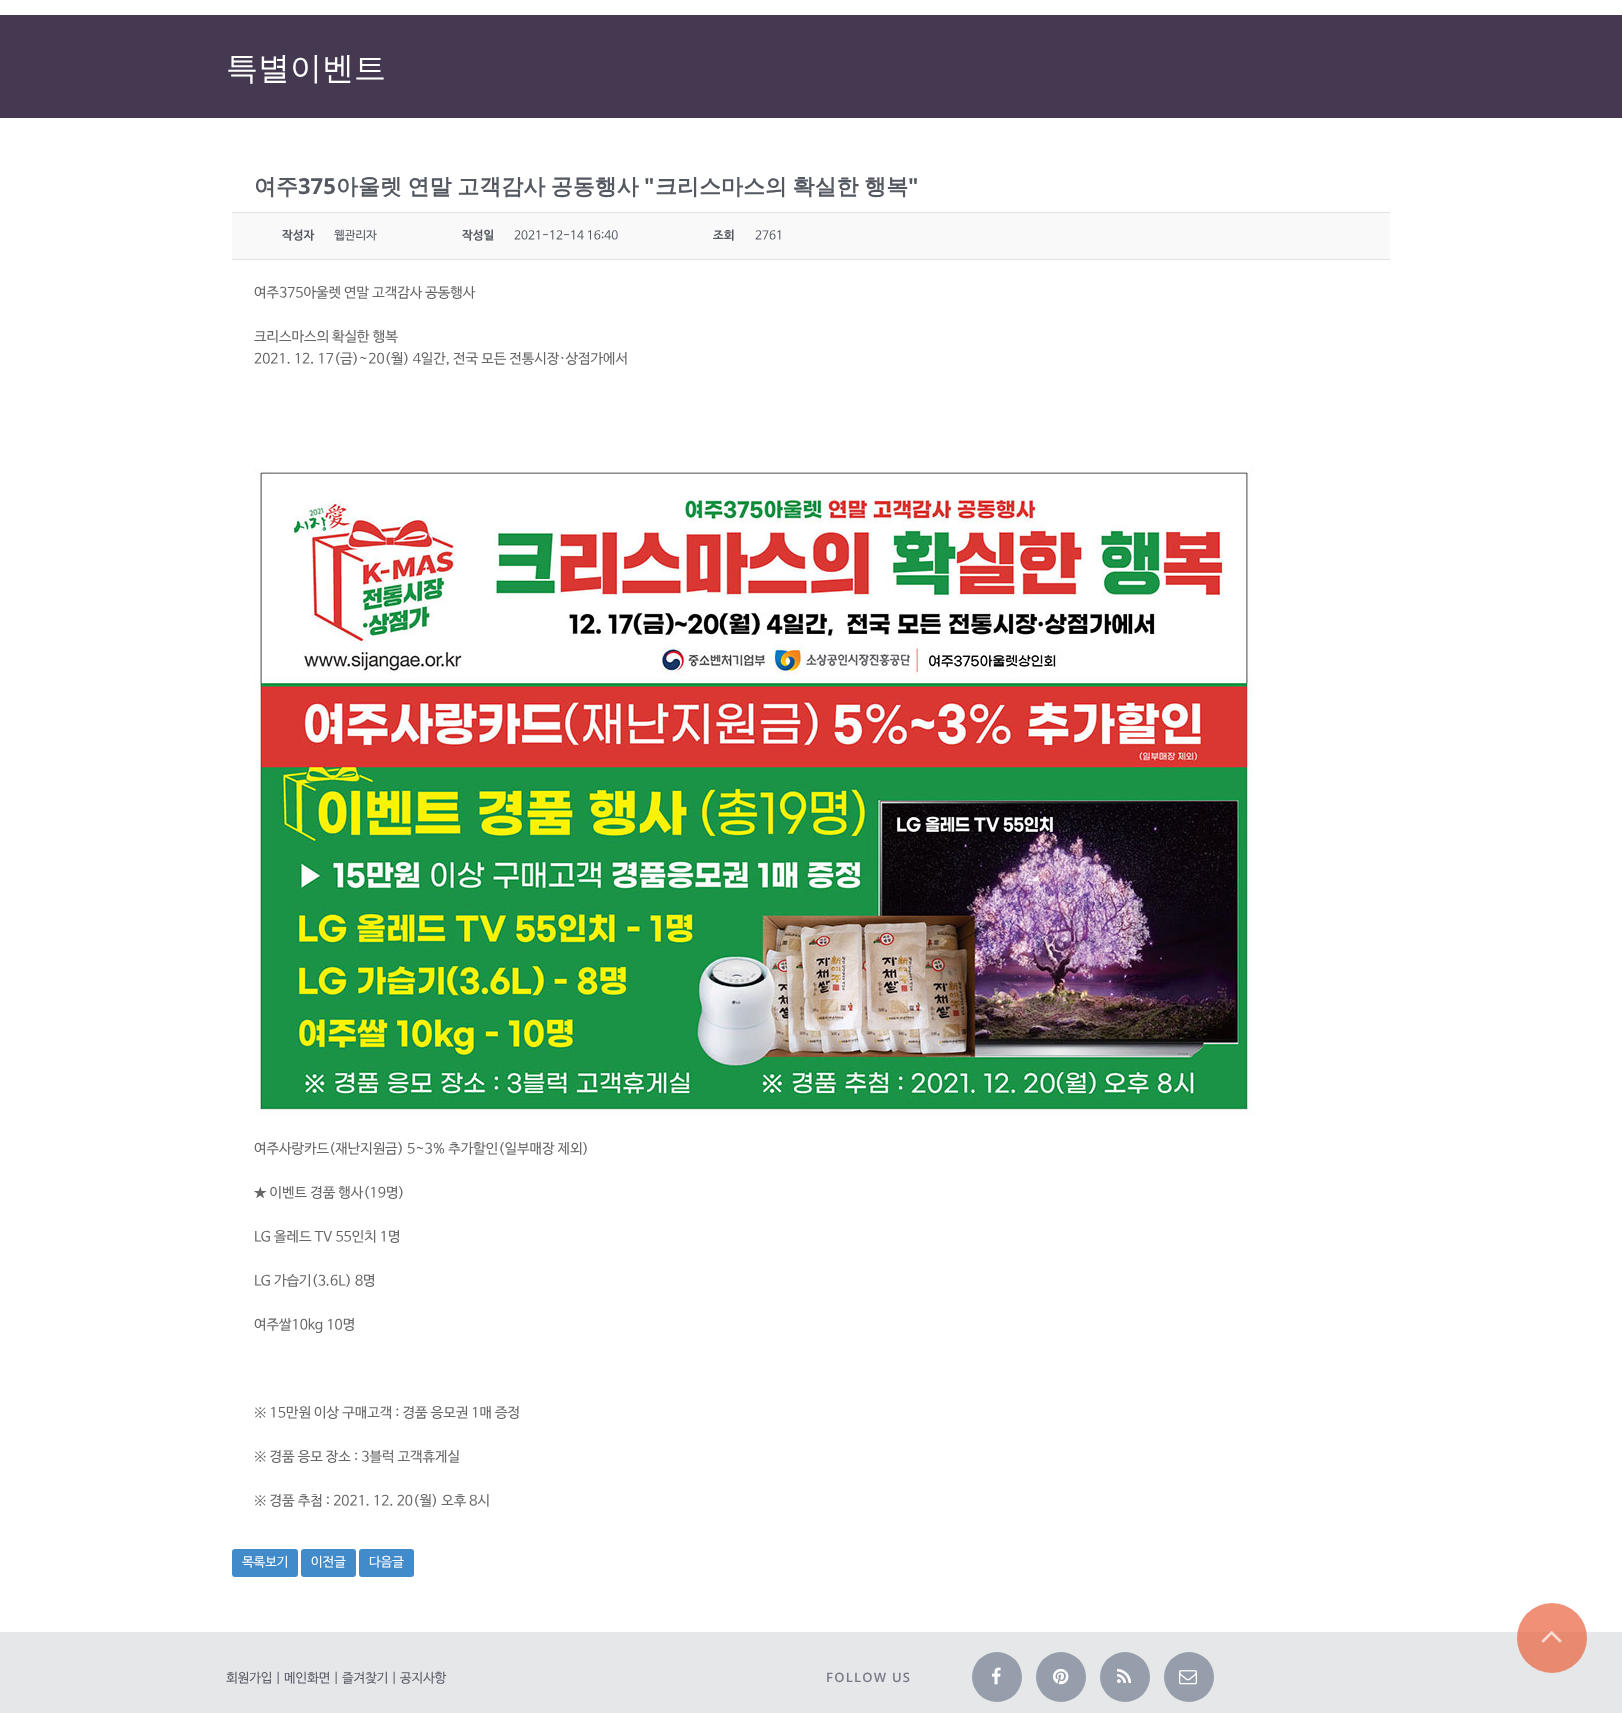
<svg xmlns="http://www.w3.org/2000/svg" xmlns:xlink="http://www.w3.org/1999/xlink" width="1622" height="1713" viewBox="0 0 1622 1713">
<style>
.cls-1{font:500 32px WenQuanYi Zen Hei;fill:#ffffff}
.cls-2{font:bold 22px WenQuanYi Zen Hei;fill:#545861}
.cls-3{font:bold 22px Open Sans;fill:#545861}
.cls-4{font:bold 12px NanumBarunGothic;fill:#545861}
.cls-5{font:12px NanumBarunGothic;fill:#545861}
.cls-6{font:14px NanumBarunGothic;fill:#666666}
.cls-7{font:13px NanumBarunGothic;fill:#ffffff}
.cls-8{font:13px NanumBarunGothic;fill:#5b5b69}
.cls-9{font:600 13px Open Sans;letter-spacing:1.25px;fill:#797988}
</style>
<rect width="100%" height="100%" fill="#ffffff"/>
<rect fill="#453951" x="0" y="15" width="1622" height="103"/>
<rect fill="#f9f9f9" x="232" y="213" width="1158" height="46"/>
<rect fill="#e3e3e3" x="232" y="212" width="1158" height="1"/>
<rect fill="#e3e3e3" x="232" y="259" width="1158" height="1"/>
<image xlink:href="image0.png" x="254" y="468" width="1000" height="648"/>
<rect fill="#428bca" x="232" y="1549" width="66" height="28" rx="3"/>
<rect fill="#428bca" x="301" y="1549" width="55" height="28" rx="3"/>
<rect fill="#428bca" x="359" y="1549" width="55" height="28" rx="3"/>
<rect fill="#e5e7e8" x="0" y="1632" width="1622" height="81"/>
<circle fill="#ea623d" fill-opacity="0.7" cx="1552" cy="1638" r="35"/>
<image xlink:href="image1.png" x="1541" y="1631" width="21" height="12"/>
<circle fill="#979eab" cx="997" cy="1677" r="25"/>
<image xlink:href="image2.png" x="991" y="1667" width="10" height="18"/>
<circle fill="#979eab" cx="1061" cy="1677" r="25"/>
<image xlink:href="image3.png" x="1053" y="1668" width="16" height="17"/>
<circle fill="#979eab" cx="1125" cy="1677" r="25"/>
<image xlink:href="image4.png" x="1117" y="1668" width="15" height="15"/>
<circle fill="#979eab" cx="1189" cy="1677" r="25"/>
<image xlink:href="image5.png" x="1179" y="1670" width="18" height="15"/>
<text class="cls-1" x="226" y="79">특별이벤트</text>
<text class="cls-2" x="254" y="194">여주</text>
<text class="cls-3" x="298" y="194">375</text>
<text class="cls-2" x="336" y="194" word-spacing="-1">아울렛 연말 고객감사 공동행사</text>
<text class="cls-3" x="644" y="194">"</text>
<text class="cls-2" x="655" y="194" word-spacing="-1">크리스마스의 확실한 행복</text>
<text class="cls-3" x="908" y="194">"</text>
<text class="cls-4" x="282" y="239">작성자</text>
<text class="cls-5" x="334" y="239">웹관리자</text>
<text class="cls-4" x="462" y="239">작성일</text>
<text class="cls-5" x="514" y="239">2021-12-14 16:40</text>
<text class="cls-4" x="713" y="239">조회</text>
<text class="cls-5" x="755" y="239">2761</text>
<text class="cls-6" x="254" y="297">여주375아울렛 연말 고객감사 공동행사</text>
<text class="cls-6"><tspan x="254" y="341">크리스마스의 확실한 행복</tspan><tspan x="254" y="363">2021. 12. 17(금)~20(월) 4일간, 전국 모든 전통시장·상점가에서</tspan></text>
<text class="cls-6" x="254" y="1153">여주사랑카드(재난지원금) 5~3% 추가할인(일부매장 제외)</text>
<text class="cls-6" x="254" y="1197">★ 이벤트 경품 행사(19명)</text>
<text class="cls-6" x="254" y="1241">LG 올레드 TV 55인치 1명</text>
<text class="cls-6" x="254" y="1285">LG 가습기(3.6L) 8명</text>
<text class="cls-6" x="254" y="1329">여주쌀10kg 10명</text>
<text class="cls-6" x="254" y="1417">※ 15만원 이상 구매고객 : 경품 응모권 1매 증정</text>
<text class="cls-6" x="254" y="1461">※ 경품 응모 장소 : 3블럭 고객휴게실</text>
<text class="cls-6" x="254" y="1505">※ 경품 추첨 : 2021. 12. 20(월) 오후 8시</text>
<text class="cls-7" x="242" y="1566">목록보기</text>
<text class="cls-7" x="311" y="1566">이전글</text>
<text class="cls-7" x="369" y="1566">다음글</text>
<text class="cls-8" x="226" y="1682">회원가입 | 메인화면 | 즐겨찾기 | 공지사항</text>
<text class="cls-9" x="826" y="1682">FOLLOW US</text>
</svg>
